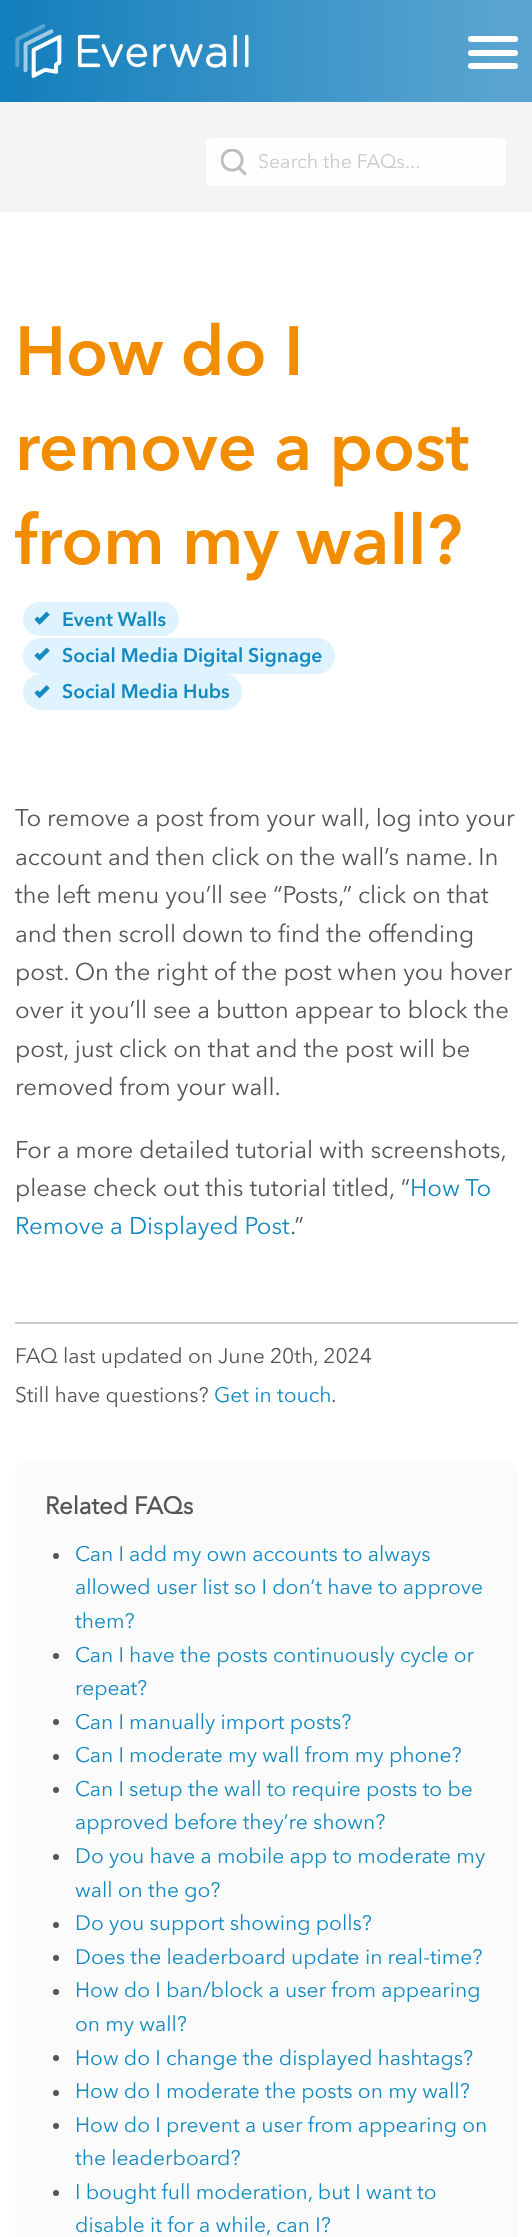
<svg xmlns="http://www.w3.org/2000/svg" xmlns:xlink="http://www.w3.org/1999/xlink" width="532" height="2237" viewBox="0 0 532 2237">
<style>
.cls-1{font:19.5px 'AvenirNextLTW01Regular';fill:#cacaca}
.cls-2{font:bold 69px 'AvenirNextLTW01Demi';fill:#f38d00}
.cls-3{font:bold 19.5px 'AvenirNextLTW01Demi';fill:#158ac0}
.cls-4{font:24px 'AvenirNextLTW01Regular';fill:#555555}
.cls-5{font:24px 'AvenirNextLTW01Regular';fill:#158ac0}
.cls-6{font:21px 'AvenirNextLTW01Regular';fill:#555555}
.cls-7{font:21px 'AvenirNextLTW01Regular';fill:#158ac0}
.cls-8{font:bold 24px 'AvenirNextLTW01Regular';fill:#555555}
</style>
<defs>
<linearGradient id="g1" gradientUnits="userSpaceOnUse" x1="0" y1="51" x2="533" y2="51"><stop offset="0" stop-color="#127ebc"/><stop offset="0.93" stop-color="#59a4d0"/></linearGradient>
</defs>
<rect width="100%" height="100%" fill="#ffffff"/>
<rect fill="url(#g1)" x="0" y="0" width="532" height="102"/>
<image xlink:href="image0.png" x="15" y="24" width="234" height="54"/>
<rect fill="#ffffff" x="468" y="36" width="50" height="6" rx="3"/>
<rect fill="#ffffff" x="468" y="50" width="50" height="6" rx="3"/>
<rect fill="#ffffff" x="468" y="63" width="50" height="6" rx="3"/>
<rect fill="#f4f4f4" x="0" y="102" width="532" height="108"/>
<rect fill="#f1f1f1" x="0" y="210" width="532" height="2"/>
<rect fill="#fefefe" x="206" y="138" width="300" height="48" rx="3"/>
<image xlink:href="image1.png" x="221" y="149" width="26" height="27"/>
<rect fill="#dff3ff" x="23" y="602" width="156" height="34" rx="17"/>
<image xlink:href="image2.png" x="34" y="611" width="16" height="14"/>
<rect fill="#dff3ff" x="23" y="638" width="312" height="36" rx="18"/>
<image xlink:href="image2.png" x="34" y="647" width="16" height="14"/>
<rect fill="#dff3ff" x="23" y="674" width="219" height="36" rx="18"/>
<image xlink:href="image3.png" x="34" y="685" width="16" height="14"/>
<rect fill="#cacaca" x="15" y="1322" width="503" height="2"/>
<rect fill="#fbfbfb" x="15" y="1461" width="503" height="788" rx="12"/>
<circle fill="#555555" cx="56" cy="1556" r="3"/>
<circle fill="#555555" cx="56" cy="1656" r="3"/>
<circle fill="#555555" cx="56" cy="1722" r="3"/>
<circle fill="#555555" cx="56" cy="1757" r="3"/>
<circle fill="#555555" cx="56" cy="1790" r="3"/>
<circle fill="#555555" cx="56" cy="1857" r="3"/>
<circle fill="#555555" cx="56" cy="1925" r="3"/>
<circle fill="#555555" cx="56" cy="1958" r="3"/>
<circle fill="#555555" cx="56" cy="1992" r="3"/>
<circle fill="#555555" cx="56" cy="2058" r="3"/>
<circle fill="#555555" cx="56" cy="2093" r="3"/>
<circle fill="#555555" cx="56" cy="2126" r="3"/>
<circle fill="#555555" cx="56" cy="2193" r="3"/>
<text class="cls-1" x="258" y="168">Search the FAQs...</text>
<text class="cls-2"><tspan x="15" y="375">How do I</tspan><tspan x="15" y="470">remove a post</tspan><tspan x="15" y="564">from my wall?</tspan></text>
<text class="cls-3"><tspan x="62" y="626">Event Walls</tspan><tspan x="62" y="662">Social Media Digital Signage</tspan><tspan x="62" y="698">Social Media Hubs</tspan></text>
<text class="cls-4"><tspan x="15" y="826">To remove a post from your wall, log into your</tspan><tspan x="15" y="865">account and then click on the wall’s name. In</tspan><tspan x="15" y="903">the left menu you’ll see “Posts,” click on that</tspan><tspan x="15" y="942">and then scroll down to find the offending</tspan><tspan x="15" y="980">post. On the right of the post when you hover</tspan><tspan x="15" y="1018">over it you’ll see a button appear to block the</tspan><tspan x="15" y="1057">post, just click on that and the post will be</tspan><tspan x="15" y="1095">removed from your wall.</tspan></text>
<text class="cls-4"><tspan x="15" y="1158">For a more detailed tutorial with screenshots,</tspan><tspan x="15" y="1196">please check out this tutorial titled, “</tspan></text>
<text class="cls-5" x="410" y="1196">How To</text>
<text class="cls-5" x="15" y="1234">Remove a Displayed Post</text>
<text class="cls-4" x="290" y="1234">.”</text>
<text class="cls-6"><tspan x="15" y="1363">FAQ last updated on June 20th, 2024</tspan><tspan x="15" y="1402">Still have questions?</tspan></text>
<text class="cls-7" x="214" y="1402">Get in touch</text>
<text class="cls-6" x="331" y="1402">.</text>
<text class="cls-8" x="45" y="1514">Related FAQs</text>
<text class="cls-7"><tspan x="75" y="1561">Can I add my own accounts to always</tspan><tspan x="75" y="1594">allowed user list so I don’t have to approve</tspan><tspan x="75" y="1628">them?</tspan><tspan x="75" y="1662">Can I have the posts continuously cycle or</tspan><tspan x="75" y="1695">repeat?</tspan><tspan x="75" y="1729">Can I manually import posts?</tspan><tspan x="75" y="1762">Can I moderate my wall from my phone?</tspan><tspan x="75" y="1796">Can I setup the wall to require posts to be</tspan><tspan x="75" y="1829">approved before they’re shown?</tspan><tspan x="75" y="1863">Do you have a mobile app to moderate my</tspan><tspan x="75" y="1897">wall on the go?</tspan><tspan x="75" y="1930">Do you support showing polls?</tspan><tspan x="75" y="1964">Does the leaderboard update in real-time?</tspan><tspan x="75" y="1997">How do I ban/block a user from appearing</tspan><tspan x="75" y="2031">on my wall?</tspan><tspan x="75" y="2065">How do I change the displayed hashtags?</tspan><tspan x="75" y="2098">How do I moderate the posts on my wall?</tspan><tspan x="75" y="2132">How do I prevent a user from appearing on</tspan><tspan x="75" y="2165">the leaderboard?</tspan><tspan x="75" y="2199">I bought full moderation, but I want to</tspan><tspan x="75" y="2232">disable it for a while, can I?</tspan></text>
</svg>
